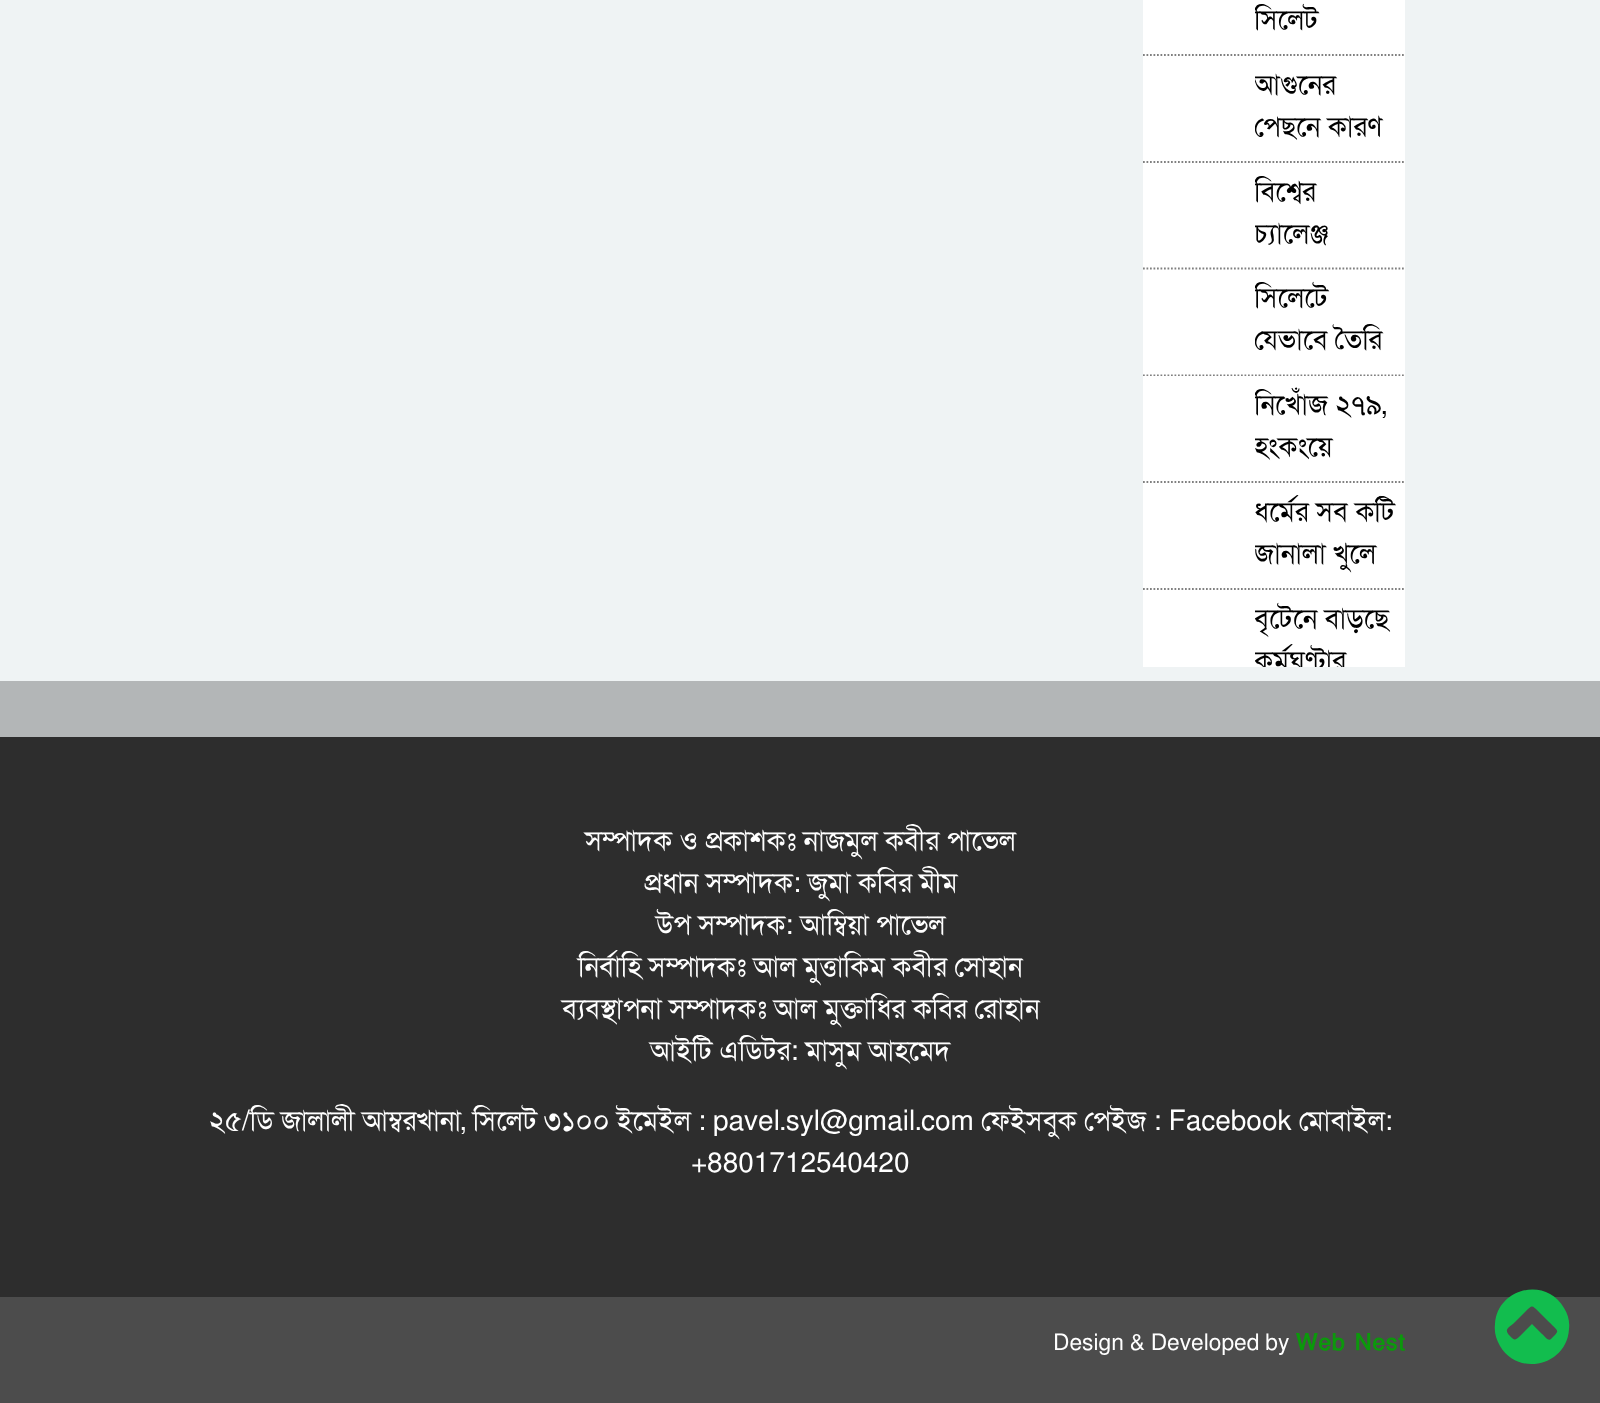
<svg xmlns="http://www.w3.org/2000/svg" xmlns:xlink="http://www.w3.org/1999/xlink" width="1600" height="1403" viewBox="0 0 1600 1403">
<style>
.cls-1{font:28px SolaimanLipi;fill:#000000}
.cls-2{font:28px SolaimanLipi;fill:#ffffff}
.cls-3{font:22.75px SolaimanLipi;fill:#ffffff}
.cls-4{font:bold 22.75px SolaimanLipi;letter-spacing:1px;fill:#0c980c}
</style>
<defs>
<clipPath id="clip1"><rect x="1255" y="0" width="142" height="46"/></clipPath>
<clipPath id="clip2"><rect x="1255" y="65" width="142" height="87"/></clipPath>
<clipPath id="clip3"><rect x="1255" y="172" width="142" height="87"/></clipPath>
<clipPath id="clip4"><rect x="1255" y="278" width="142" height="88"/></clipPath>
<clipPath id="clip5"><rect x="1255" y="385" width="142" height="88"/></clipPath>
<clipPath id="clip6"><rect x="1255" y="492" width="142" height="87"/></clipPath>
<clipPath id="clip7"><rect x="1255" y="599" width="142" height="68"/></clipPath>
</defs>
<rect width="100%" height="100%" fill="#eff3f4"/>
<rect fill="#ffffff" x="1143" y="0" width="262" height="376"/>
<path fill="none" stroke="#808080" stroke-width="1.8" stroke-dasharray="1.75 1.75" d="M1143 55H1405"/>
<path fill="none" stroke="#808080" stroke-width="1.8" stroke-dasharray="1.75 1.75" d="M1143 162H1405"/>
<path fill="none" stroke="#808080" stroke-width="1.8" stroke-dasharray="1.75 1.75" d="M1143 268.5H1405"/>
<path fill="none" stroke="#808080" stroke-width="1.8" stroke-dasharray="1.75 1.75" d="M1143 375.5H1405"/>
<rect fill="#ffffff" x="1143" y="376" width="262" height="291"/>
<path fill="none" stroke="#808080" stroke-width="1.8" stroke-dasharray="1.75 1.75" d="M1143 482H1405"/>
<path fill="none" stroke="#808080" stroke-width="1.8" stroke-dasharray="1.75 1.75" d="M1143 589H1405"/>
<rect fill="#b3b6b7" x="0" y="681" width="1600" height="56"/>
<rect fill="#2d2d2d" x="0" y="737" width="1600" height="560"/>
<rect fill="#4c4c4c" x="0" y="1297" width="1600" height="106"/>
<path fill="#12bd4e" d="M1551 1339C1560 1330 1559 1332 1549 1322L1538 1311C1532 1305 1532 1305 1526 1311L1515 1322C1509 1328 1503 1329 1510 1336C1514 1340 1515 1341 1520 1336L1532 1324L1542 1334C1544 1335 1548 1342 1551 1339ZM1564 1308C1568 1314 1570 1322 1569 1329C1567 1366 1518 1377 1500 1346C1496 1339 1494 1332 1495 1324C1497 1288 1546 1276 1564 1308Z"/>
<g clip-path="url(#clip1)">
<text class="cls-1" x="1254" y="29">সিলেট</text>
</g>
<g clip-path="url(#clip2)">
<text class="cls-1"><tspan x="1254" y="94">আগুনের</tspan><tspan x="1254" y="136">পেছনে কারণ</tspan></text>
</g>
<g clip-path="url(#clip3)">
<text class="cls-1"><tspan x="1254" y="201">বিশ্বের</tspan><tspan x="1254" y="243">চ্যালেঞ্জ</tspan></text>
</g>
<g clip-path="url(#clip4)">
<text class="cls-1"><tspan x="1254" y="307">সিলেটে</tspan><tspan x="1254" y="349">যেভাবে তৈরি</tspan></text>
</g>
<g clip-path="url(#clip5)">
<text class="cls-1"><tspan x="1254" y="414">নিখোঁজ ২৭৯,</tspan><tspan x="1254" y="456">হংকংয়ে</tspan></text>
</g>
<text class="cls-1" x="1254" y="521">ধর্মের সব কটি</text>
<g clip-path="url(#clip6)">
<text class="cls-1" x="1254" y="563">জানালা খুলে</text>
</g>
<g clip-path="url(#clip7)">
<text class="cls-1"><tspan x="1254" y="628">বৃটেনে বাড়ছে</tspan><tspan x="1254" y="670">কর্মঘণ্টার</tspan></text>
</g>
<text class="cls-2" x="585" y="850">সম্পাদক ও প্রকাশকঃ নাজমুল কবীর পাভেল</text>
<text class="cls-2" x="644" y="892">প্রধান সম্পাদক: জুমা কবির মীম</text>
<text class="cls-2" x="656" y="934">উপ সম্পাদক: আম্বিয়া পাভেল</text>
<text class="cls-2" x="578" y="976">নির্বাহি সম্পাদকঃ আল মুত্তাকিম কবীর সোহান</text>
<text class="cls-2" x="562" y="1018">ব্যবস্থাপনা সম্পাদকঃ আল মুক্তাধির কবির রোহান</text>
<text class="cls-2" x="650" y="1060">আইটি এডিটর: মাসুম আহমেদ</text>
<text class="cls-2" x="209" y="1130">২৫/ডি জালালী আম্বরখানা, সিলেট ৩১০০ ইমেইল : pavel.syl@gmail.com ফেইসবুক পেইজ : Facebook মোবাইল:</text>
<text class="cls-2" x="691" y="1172">+8801712540420</text>
<text class="cls-3" x="1053" y="1350">Design &amp; Developed by</text>
<text class="cls-4" x="1296" y="1350">Web Nest</text>
</svg>
